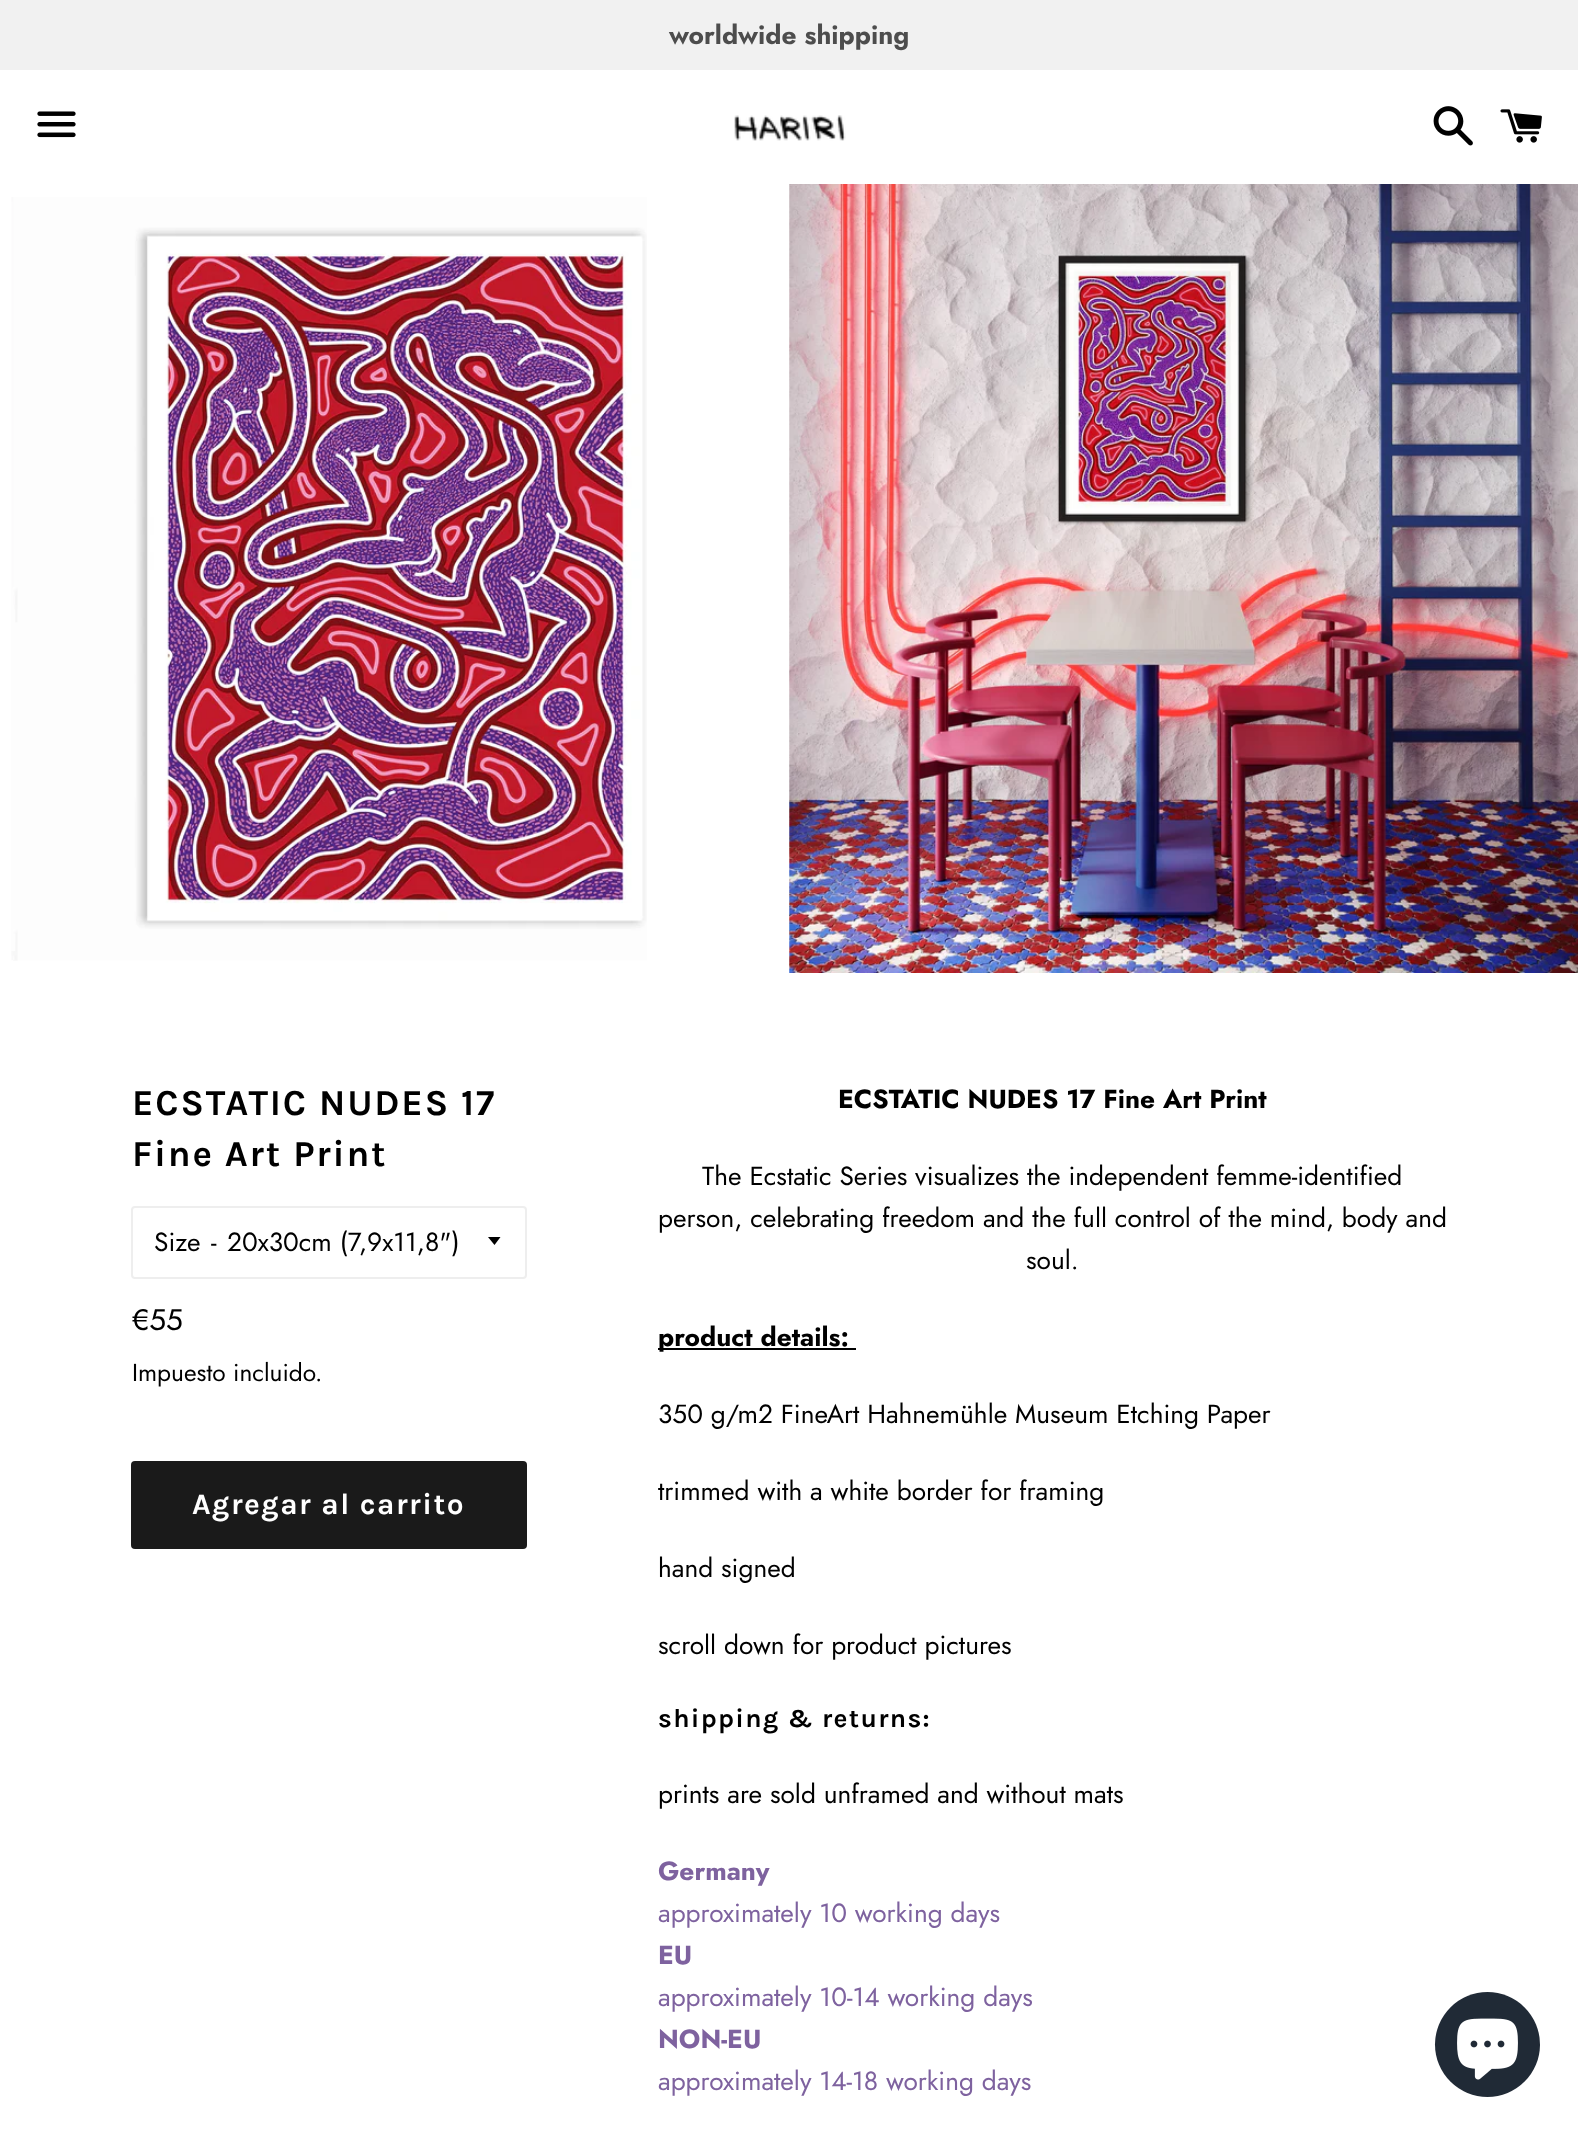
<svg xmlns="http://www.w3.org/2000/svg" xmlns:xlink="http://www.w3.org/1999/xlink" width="1578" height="2133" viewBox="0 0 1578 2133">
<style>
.cls-1{font:bold 26.25px Jost;fill:#4d4d4d}
.cls-2{font:bold 36.75px Karla;letter-spacing:1.8px;fill:#000000}
.cls-3{font:26.25px Jost;fill:#000000}
.cls-4{font:29.75px Jost;fill:#000000}
.cls-5{font:24.5px Jost;fill:#000000}
.cls-6{font:bold 29.75px Karla;letter-spacing:1.5px;fill:#ffffff}
.cls-7{font:bold 26.25px Jost;fill:#000000}
.cls-8{font:bold 26.25px Karla;letter-spacing:1.3px;fill:#000000}
.cls-9{font:bold 26.25px Jost;fill:#7e629f}
.cls-10{font:26.25px Jost;fill:#7e629f}
</style>
<rect width="100%" height="100%" fill="#ffffff"/>
<rect fill="#f1f1f1" x="0" y="0" width="1578" height="70"/>
<image xlink:href="image0.png" x="37" y="111" width="39" height="27"/>
<image xlink:href="image1.png" x="734" y="115" width="112" height="26"/>
<image xlink:href="image2.png" x="1433" y="106" width="40" height="40"/>
<image xlink:href="image3.png" x="1500" y="109" width="42" height="34"/>
<image xlink:href="image4.png" x="11" y="197" width="636" height="764"/>
<image xlink:href="image5.png" x="789" y="184" width="789" height="789"/>
<rect fill="none" stroke="#eeeeee" stroke-width="2" x="132" y="1207" width="394" height="71" rx="3"/>
<path fill="#000000" d="M488 1237L494.5 1245L500.5 1237Z"/>
<rect fill="#1a1a1a" x="131" y="1461" width="396" height="88" rx="4"/>
<rect fill="#000000" x="658" y="1348" width="198" height="2"/>
<circle fill="#202a36" cx="1487.5" cy="2044.5" r="52.5"/>
<image xlink:href="image6.png" x="1457" y="2018" width="61" height="62"/>
<text class="cls-1" x="669" y="44">worldwide shipping</text>
<text class="cls-2"><tspan x="132" y="1115">ECSTATIC NUDES 17</tspan><tspan x="132" y="1166">Fine Art Print</tspan></text>
<text class="cls-3" x="154" y="1251">Size</text>
<text class="cls-3" x="211" y="1251">-</text>
<text class="cls-3" x="227" y="1251">20x30cm (7,9x11,8")</text>
<text class="cls-4" x="132" y="1330">€55</text>
<text class="cls-5" x="132" y="1381">Impuesto incluido.</text>
<text class="cls-6" x="192" y="1514">Agregar al carrito</text>
<text class="cls-7" x="838" y="1108">ECSTATIC NUDES 17 Fine Art Print</text>
<text class="cls-3" x="702" y="1185">The Ecstatic Series visualizes the independent femme-identified</text>
<text class="cls-3" x="658" y="1227">person, celebrating freedom and the full control of the mind, body and</text>
<text class="cls-3" x="1026" y="1269">soul.</text>
<text class="cls-7" x="658" y="1346">product details:</text>
<text class="cls-3" x="658" y="1423">350 g/m2 FineArt Hahnemühle Museum Etching Paper</text>
<text class="cls-3" x="658" y="1500">trimmed with a white border for framing</text>
<text class="cls-3" x="658" y="1577">hand signed</text>
<text class="cls-3" x="658" y="1654">scroll down for product pictures</text>
<text class="cls-8" x="658" y="1727">shipping &amp; returns:</text>
<text class="cls-3" x="658" y="1803">prints are sold unframed and without mats</text>
<text class="cls-9" x="658" y="1880">Germany</text>
<text class="cls-10" x="658" y="1922">approximately 10 working days</text>
<text class="cls-9" x="658" y="1964">EU</text>
<text class="cls-10" x="658" y="2006">approximately 10-14 working days</text>
<text class="cls-9" x="658" y="2048">NON-EU</text>
<text class="cls-10" x="658" y="2090">approximately 14-18 working days</text>
</svg>
